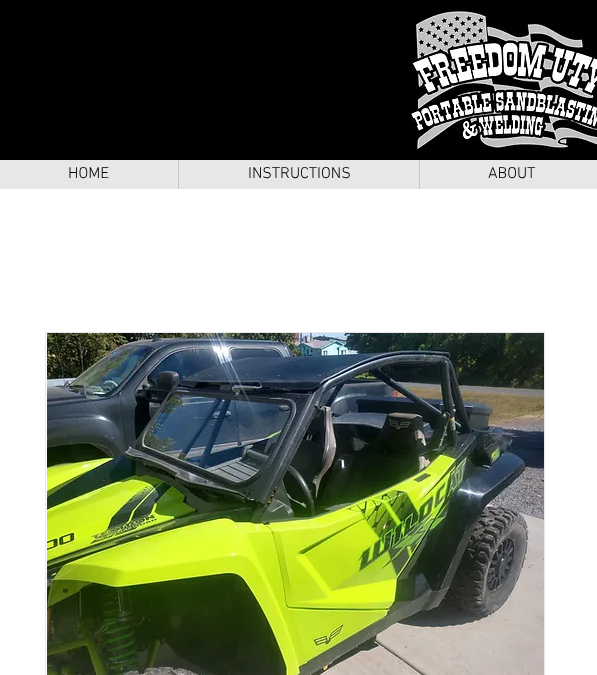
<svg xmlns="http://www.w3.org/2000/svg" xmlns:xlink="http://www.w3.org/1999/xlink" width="597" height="675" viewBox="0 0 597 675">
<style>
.cls-1{font:300 16px 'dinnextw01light';fill:#000000}
</style>
<rect width="100%" height="100%" fill="#000000"/>
<image xlink:href="image0.png" x="411" y="8" width="186" height="141"/>
<rect fill="#e8e6e6" x="0" y="160" width="597" height="29"/>
<rect fill="#c7c7c7" x="178" y="160" width="1" height="29"/>
<rect fill="#c7c7c7" x="419" y="160" width="1" height="29"/>
<rect fill="#ffffff" x="0" y="189" width="597" height="486"/>
<rect fill="none" stroke="#e8e6e6" x="45.5" y="332.5" width="499" height="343"/>
<image xlink:href="image1.png" x="47" y="333" width="497" height="342"/>
<text class="cls-1" x="68" y="178">HOME</text>
<text class="cls-1" x="248" y="178">INSTRUCTIONS</text>
<text class="cls-1" x="488" y="178">ABOUT</text>
</svg>
